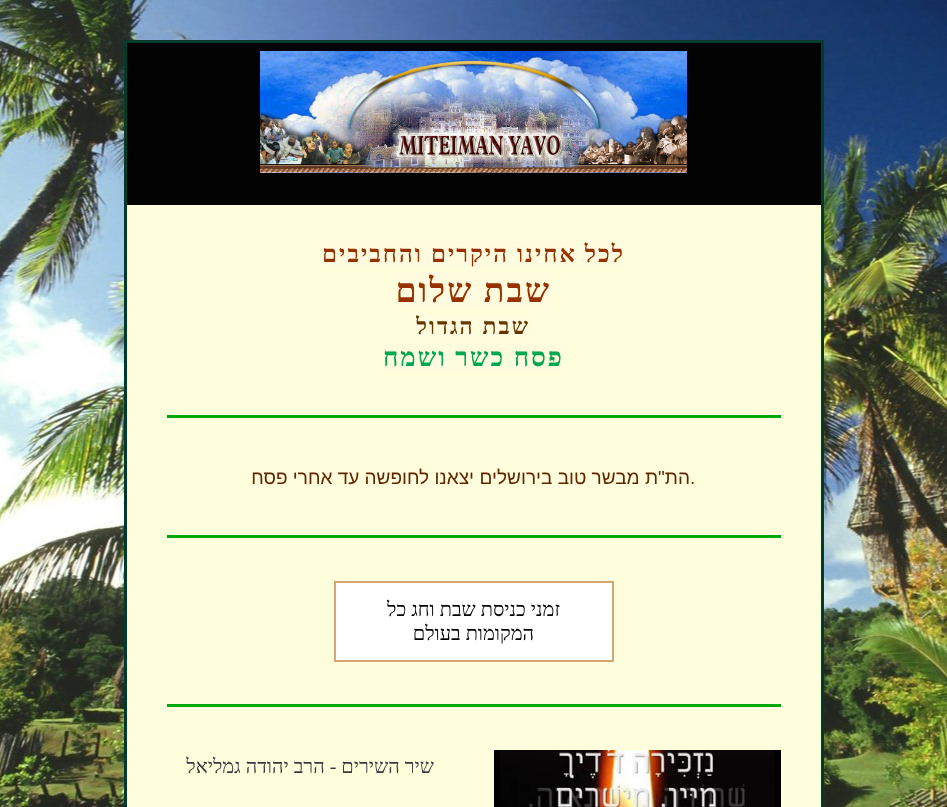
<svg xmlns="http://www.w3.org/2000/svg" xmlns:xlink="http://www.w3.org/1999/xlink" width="947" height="807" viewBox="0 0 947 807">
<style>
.cls-1{font:bold 24px Liberation Serif;letter-spacing:2px;direction:rtl;fill:#963100}
.cls-2{font:bold 34px Liberation Serif;letter-spacing:2px;direction:rtl;fill:#963100}
.cls-3{font:bold 23px Liberation Serif;letter-spacing:2px;direction:rtl;fill:#673600}
.cls-4{font:bold 26px Liberation Serif;letter-spacing:2px;direction:rtl;fill:#01a74f}
.cls-5{font:19px Liberation Sans;fill:#612400}
.cls-6{font:19px Liberation Sans;direction:rtl;fill:#612400}
.cls-7{font:20px Liberation Serif;direction:rtl;fill:#030303}
.cls-8{font:20px Liberation Serif;direction:rtl;fill:#38393f}
</style>
<rect width="100%" height="100%" fill="#ffffff"/>
<image xlink:href="image0.png" x="0" y="0" width="947" height="807"/>
<rect fill="#003b2b" x="124" y="40" width="700" height="3"/>
<rect fill="#003b2b" x="821" y="40" width="3" height="767"/>
<rect fill="#003b2b" x="124" y="40" width="3" height="767"/>
<rect fill="#030303" x="127" y="43" width="694" height="162"/>
<image xlink:href="image1.png" x="260" y="51" width="427" height="122"/>
<rect fill="#fffedc" x="127" y="205" width="694" height="602"/>
<rect fill="#fffbdf" x="322" y="241" width="303" height="26"/>
<rect fill="#fffbdf" x="396" y="272" width="155" height="37"/>
<rect fill="#fffbdf" x="417" y="314" width="113" height="25"/>
<rect fill="#fffbdf" x="383" y="343" width="181" height="29"/>
<rect fill="#01a709" x="167" y="415" width="614" height="3"/>
<rect fill="#01a709" x="167" y="535" width="614" height="3"/>
<rect fill="#ffffff" stroke="#d3a674" stroke-width="2" x="335" y="582" width="278" height="79"/>
<rect fill="#01a709" x="167" y="704" width="614" height="3"/>
<image xlink:href="image2.png" x="494" y="750" width="287" height="57"/>
<text class="cls-1" x="625" y="262">לכל אחינו היקרים והחביבים</text>
<text class="cls-2" x="551" y="302">שבת שלום</text>
<text class="cls-3" x="530" y="334">שבת הגדול</text>
<text class="cls-4" x="564" y="366">פסח כשר ושמח</text>
<text class="cls-5" x="690" y="484">.</text>
<text class="cls-6" x="690" y="484">הת"ת מבשר טוב בירושלים</text>
<text class="cls-6" x="474" y="484">יצאנו לחופשה עד אחרי פסח</text>
<text class="cls-7" x="560" y="616">זמני כניסת שבת וחג כל</text>
<text class="cls-7" x="534" y="640">המקומות בעולם</text>
<text class="cls-8" x="434" y="773">שיר השירים - הרב יהודה גמליאל</text>
</svg>
